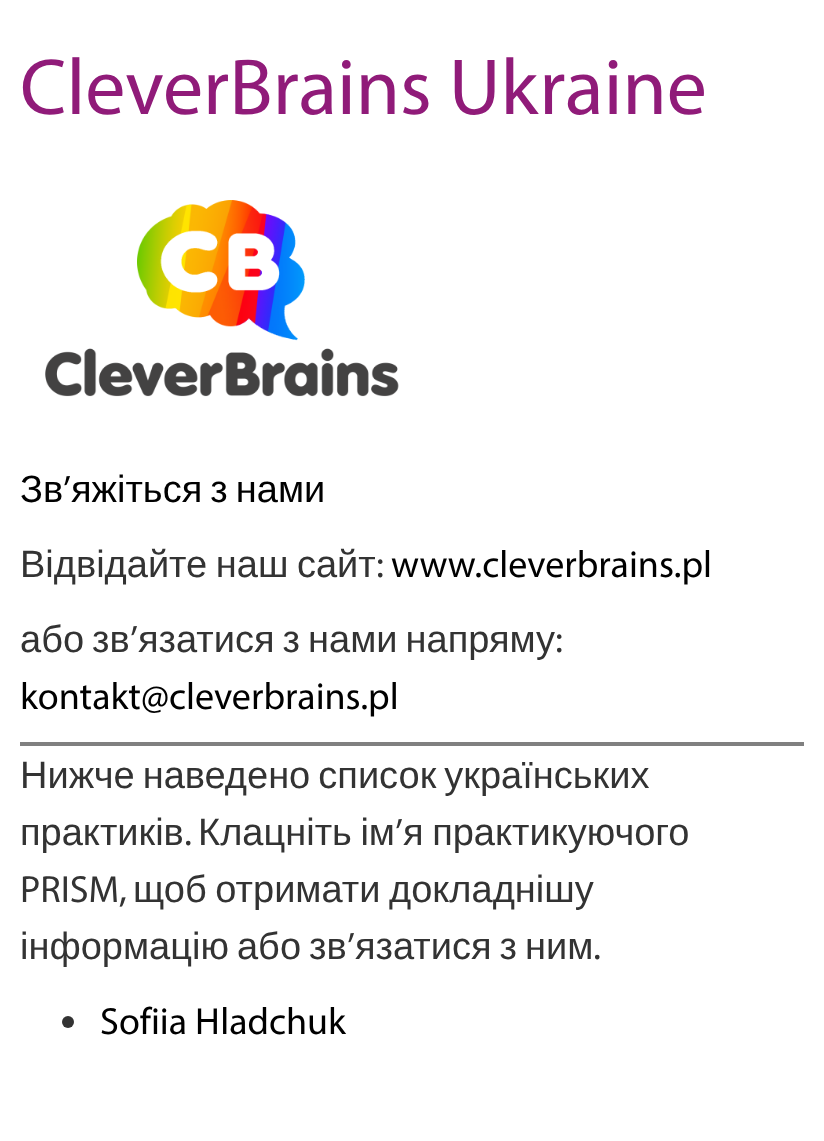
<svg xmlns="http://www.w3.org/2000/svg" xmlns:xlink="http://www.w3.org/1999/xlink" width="824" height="1141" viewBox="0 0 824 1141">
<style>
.cls-1{font:80px Myriad;fill:#901b79}
.cls-2{font:38px Liberation Sans;fill:#000000}
.cls-3{font:38px Myriad;fill:#000000}
.cls-4{font:38px Liberation Sans;fill:#333333}
.cls-5{font:38px Myriad;fill:#333333}
</style>
<rect width="100%" height="100%" fill="#ffffff"/>
<image xlink:href="image0.png" x="45" y="200" width="354" height="197"/>
<rect fill="#808080" x="20" y="742" width="784" height="4"/>
<circle fill="#333333" cx="68" cy="1022" r="6"/>
<text class="cls-1" x="20" y="114">CleverBrains Ukraine</text>
<text class="cls-2" x="20" y="502">Зв</text>
<text class="cls-3" x="63" y="502">’</text>
<text class="cls-2" x="71" y="502" word-spacing="-2.5">яжіться з нами</text>
<text class="cls-4" x="20" y="577" word-spacing="-2">Відвідайте наш сайт</text>
<text class="cls-5" x="376" y="577">:</text>
<text class="cls-3" x="391" y="577">www.cleverbrains.pl</text>
<text class="cls-4" x="20" y="652" word-spacing="-2.5">або зв</text>
<text class="cls-5" x="130" y="652">’</text>
<text class="cls-4" x="138" y="652" word-spacing="-2.5">язатися з нами напряму</text>
<text class="cls-5" x="555" y="652">:</text>
<text class="cls-3" x="20" y="709">kontakt@cleverbrains.pl</text>
<text class="cls-4"><tspan x="20" y="788" word-spacing="-2.5">Нижче наведено список українських</tspan><tspan x="20" y="845">практиків</tspan></text>
<text class="cls-5" x="184" y="845">.</text>
<text class="cls-4" x="198" y="845" word-spacing="-2">Клацніть ім</text>
<text class="cls-5" x="395" y="845">’</text>
<text class="cls-4" x="403" y="845" word-spacing="-2">я практикуючого</text>
<text class="cls-5" x="20" y="902">PRISM,</text>
<text class="cls-4" x="133" y="902" word-spacing="-2">щоб отримати докладнішу</text>
<text class="cls-4" x="20" y="959" word-spacing="-2.5">інформацію або зв</text>
<text class="cls-5" x="347" y="959">’</text>
<text class="cls-4" x="355" y="959" word-spacing="-2.5">язатися з ним</text>
<text class="cls-5" x="593" y="959">.</text>
<text class="cls-3" x="100" y="1034">Sofiia Hladchuk</text>
</svg>
